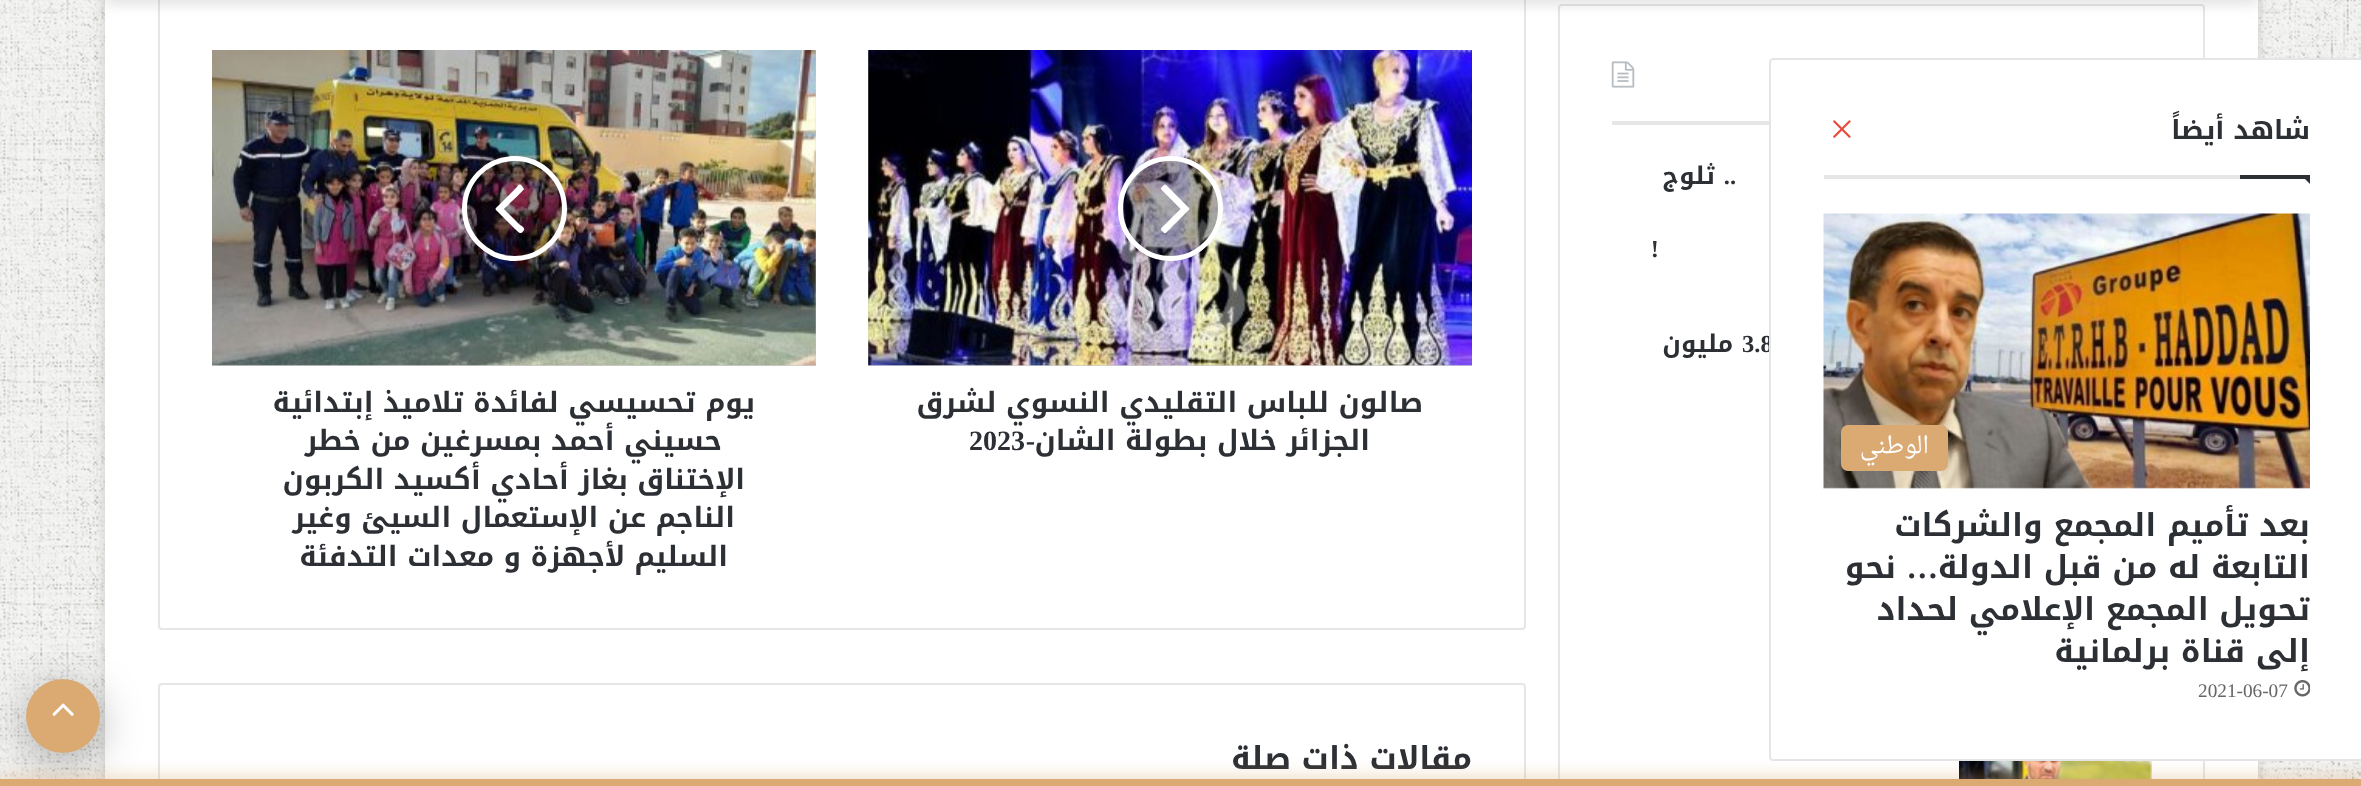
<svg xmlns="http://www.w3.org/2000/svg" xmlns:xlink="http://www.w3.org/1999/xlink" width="2361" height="786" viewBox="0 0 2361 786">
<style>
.cls-1{font:bold 24.5px Liberation Serif;direction:rtl;fill:#2c2f34}
.cls-2{font:bold 24.5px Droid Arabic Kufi;direction:rtl;fill:#2c2f34}
.cls-3{font:bold 24.5px Liberation Serif;fill:#2c2f34}
.cls-4{font:23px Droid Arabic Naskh;direction:rtl;fill:#ffffff}
.cls-5{font:19.25px Liberation Serif;fill:#666666}
.cls-6{font:bold 31.5px Droid Arabic Kufi;direction:rtl;fill:#2c2f34}
.cls-7{font:bold 31.5px Liberation Serif;direction:rtl;fill:#2c2f34}
.cls-8{font:bold 26.25px Droid Arabic Kufi;direction:rtl;fill:#2c2f34}
.cls-9{font:bold 28px Droid Arabic Kufi;direction:rtl;fill:#2c2f34}
.cls-10{font:bold 28px Liberation Serif;direction:rtl;fill:#2c2f34}
.cls-11{font:bold 28px Liberation Serif;fill:#2c2f34}
</style>
<rect width="100%" height="100%" fill="#f7f7f7"/>
<image xlink:href="image0.png" x="0" y="0" width="2361" height="779"/>
<rect fill="#ababab" fill-opacity="0.5" filter="blur(6px)" x="105" y="-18" width="2153" height="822"/>
<rect fill="#ffffff" x="105" y="0" width="2153" height="779"/>
<rect fill="none" stroke="#e6e6e6" stroke-width="2" x="1559" y="5" width="645" height="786" rx="3"/>
<rect fill="none" stroke="#e6e6e6" stroke-width="2" x="159" y="-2" width="1366" height="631" rx="3"/>
<rect fill="#636363" fill-opacity="0.2" filter="blur(7px)" x="105" y="-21" width="2153" height="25"/>
<rect fill="#e6e6e6" x="1612" y="121" width="157" height="4"/>
<image xlink:href="image4.png" x="1611" y="61" width="24" height="27"/>
<image xlink:href="image5.png" x="1959" y="761" width="193" height="18"/>
<rect fill="#cdcdcd" x="868" y="51" width="604" height="315"/>
<image xlink:href="image6.png" x="868" y="50" width="604" height="316"/>
<circle fill="#000000" fill-opacity="0.3" stroke="#ffffff" stroke-width="5" cx="1170.5" cy="208.5" r="50"/>
<image xlink:href="image7.png" x="1160" y="184" width="30" height="50"/>
<rect fill="#cdcdcd" x="212" y="51" width="604" height="315"/>
<image xlink:href="image8.png" x="212" y="50" width="604" height="316"/>
<circle fill="#000000" fill-opacity="0.3" stroke="#ffffff" stroke-width="5" cx="514.5" cy="208.5" r="50"/>
<path fill="#ffffff" d="M524 189C524 190 507 206 504 209L520 225C522 226 525 228 524 230C520 236 519 232 515 229L500 214C494 208 494 210 500 204L515 189C519 185 519 183 522 186Z"/>
<rect fill="none" stroke="#e6e6e6" stroke-width="2" x="159" y="684" width="1366" height="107" rx="3"/>
<rect fill="#000000" fill-opacity="0.3" filter="blur(22px)" x="26" y="688" width="74" height="73" rx="36.5"/>
<circle fill="#dbaa73" cx="63" cy="716" r="37"/>
<image xlink:href="image9.png" x="52" y="703" width="22" height="13"/>
<text class="cls-1" x="1736" y="184">..</text>
<text class="cls-2" x="1715" y="184">ثلوج</text>
<text class="cls-1" x="1659" y="257">!</text>
<text class="cls-3" x="1742" y="352">3.8</text>
<path fill="#ffffff" d="M1773 58H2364V761H1773C1771 761 1769 759 1769 757V62C1769 60 1771 58 1773 58Z"/>
<path fill="none" stroke="#000000" stroke-opacity="0.1" stroke-width="2" d="M1773 59H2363V760H1773C1771.5 760 1770 758.5 1770 757V62C1770 60.5 1771.5 59 1773 59Z"/>
<image xlink:href="image2.png" x="1823" y="213" width="487" height="276"/>
<rect fill="#dbaa73" x="1841" y="425" width="107" height="46" rx="7"/>
<text class="cls-4" x="1929" y="453">الوطني</text>
<text class="cls-5" x="2198" y="697">2021-06-07</text>
<image xlink:href="image3.png" x="2294" y="680" width="16" height="17"/>
<text class="cls-6" x="2310" y="662">إلى قناة برلمانية</text>
<text class="cls-6" x="2310" y="620">تحويل المجمع الإعلامي لحداد</text>
<text class="cls-6" x="1896" y="578">نحو</text>
<text class="cls-6" x="2310" y="578">التابعة له من قبل الدولة</text>
<text class="cls-7" x="1938" y="578">…</text>
<text class="cls-6" x="2310" y="536">بعد تأميم المجمع والشركات</text>
<path fill="#2c2f34" d="M2301 175H2310V184Z"/>
<rect fill="#2c2f34" x="2240" y="175" width="70" height="4"/>
<image xlink:href="image1.png" x="1833" y="120" width="18" height="18"/>
<text class="cls-8" x="2310" y="139">شاهد أيضاً</text>
<rect fill="#e6e6e6" x="1824" y="175" width="416" height="4"/>
<text class="cls-2" x="1733" y="352">مليون</text>
<text class="cls-9" x="1423" y="412">صالون للباس التقليدي النسوي لشرق</text>
<text class="cls-9" x="1370" y="450">الجزائر خلال بطولة الشان</text>
<text class="cls-10" x="1035" y="450">-</text>
<text class="cls-11" x="969" y="450">2023</text>
<text class="cls-9" x="755" y="412">يوم تحسيسي لفائدة تلاميذ إبتدائية</text>
<text class="cls-9" x="722" y="450">حسيني أحمد بمسرغين من خطر</text>
<text class="cls-9" x="745" y="489">الإختناق بغاز أحادي أكسيد الكربون</text>
<text class="cls-9" x="735" y="527">الناجم عن الإستعمال السيئ وغير</text>
<text class="cls-9" x="728" y="566">السليم لأجهزة و معدات التدفئة</text>
<text class="cls-6" x="1472" y="769">مقالات ذات صلة</text>
<rect fill="#dbaa73" fill-opacity="0.7" filter="blur(9px)" x="0" y="779" width="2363" height="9"/>
<rect fill="#dbaa73" x="0" y="779" width="2361" height="7"/>
</svg>
